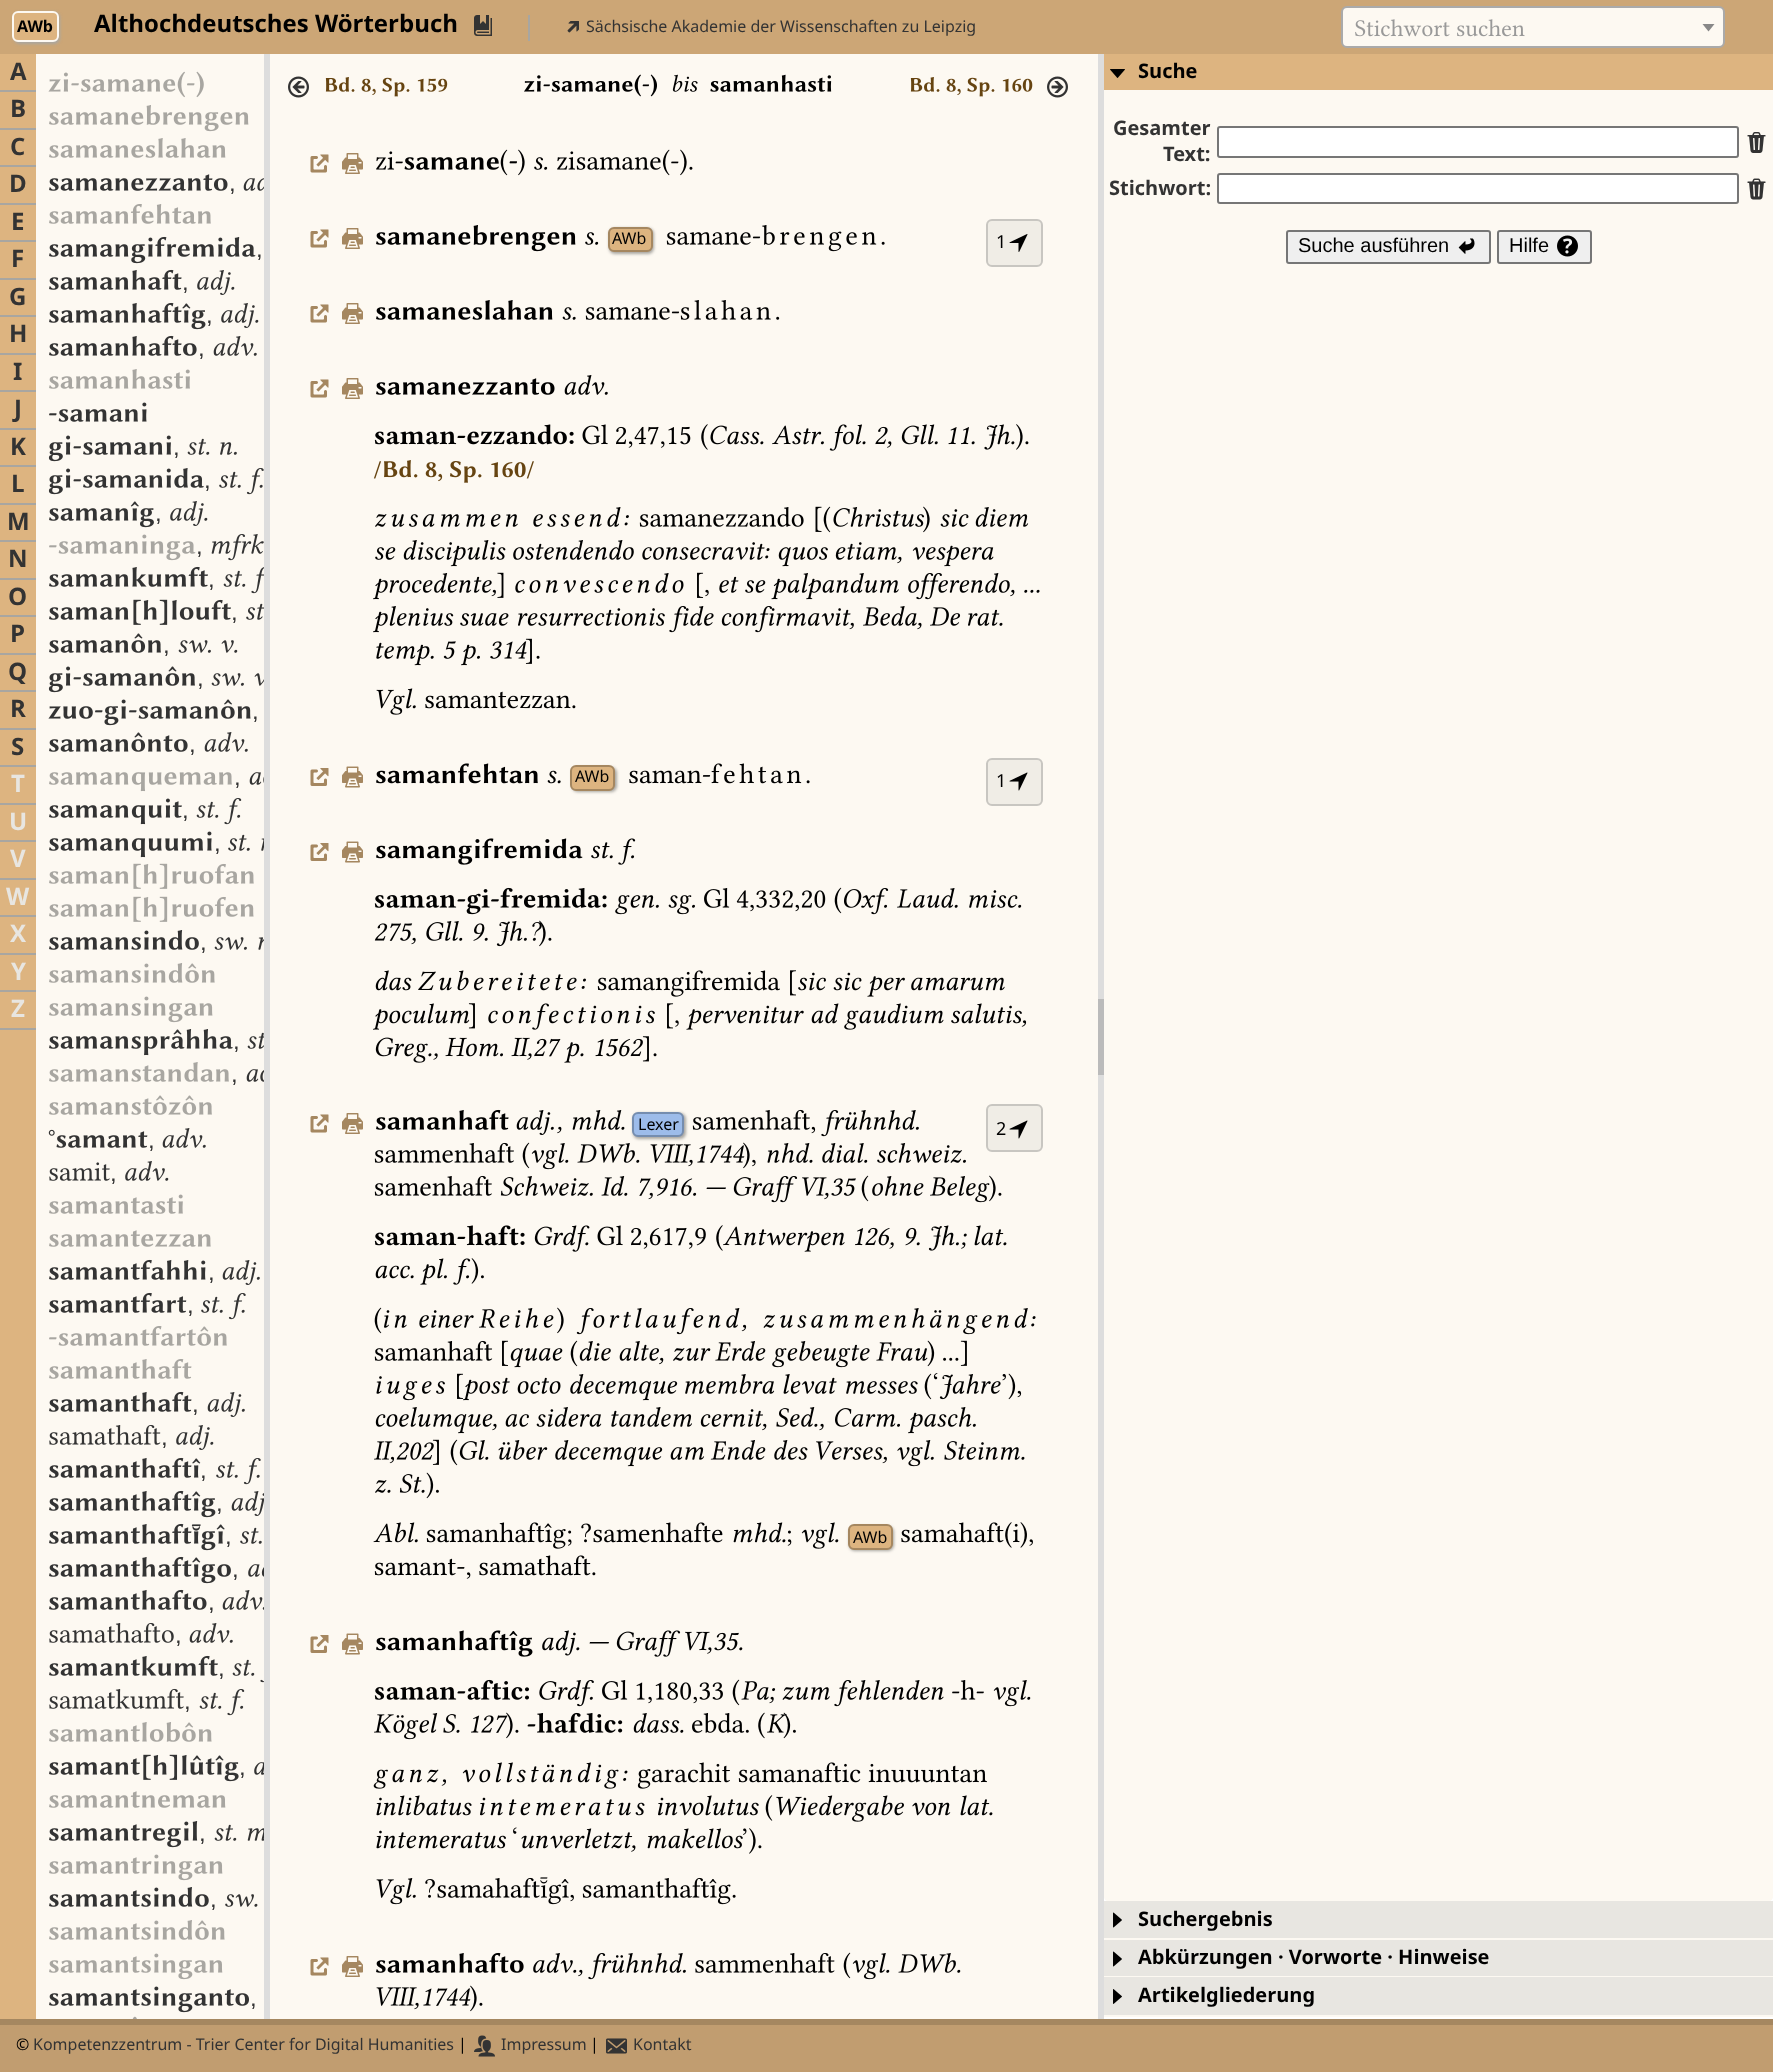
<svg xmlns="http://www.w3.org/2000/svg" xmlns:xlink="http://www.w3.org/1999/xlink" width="1773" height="2072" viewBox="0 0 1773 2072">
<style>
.cls-1{font:bold 16px Noto Sans;fill:#000000}
.cls-2{font:bold 24px Noto Sans;fill:#000000}
.cls-3{font:16px Noto Sans;fill:#333333}
.cls-4{font:bold 24px Noto Sans;fill:#333333}
.cls-5{font:bold 24px Noto Sans;fill:#e8e6e1}
.cls-6{font:24px Liberation Sans;fill:#333333}
.cls-7{font:16px Noto Sans;fill:#000000}
.cls-8{font:18px Noto Sans;fill:#000000}
.cls-9{font:bold 20px Noto Sans;fill:#000000}
.cls-10{font:bold 20px Noto Sans;fill:#333333}
.cls-11{font:20px Liberation Sans;fill:#000000}
</style>
<rect width="100%" height="100%" fill="#cca676"/>
<rect fill="#a8a6a1" filter="blur(1.5px)" x="14" y="12" width="46" height="32" rx="6"/>
<rect fill="#ddb480" stroke="#fdf9f2" stroke-width="2" x="13" y="12" width="45" height="29" rx="5"/>
<image xlink:href="image0.png" x="474" y="15" width="18" height="21"/>
<rect fill="#a8a6a1" x="528" y="15" width="2" height="26"/>
<image xlink:href="image1.png" x="567" y="21" width="12" height="12"/>
<rect fill="#fdf9f2" stroke="#aaaaaa" stroke-width="2" x="1342" y="7" width="382" height="40" rx="5"/>
<image xlink:href="image2.png" x="1355" y="19" width="170" height="18"/>
<path fill="#888888" d="M1702.5 24H1714.5L1708.5 31.5Z"/>
<rect fill="#dddddd" x="264" y="54" width="6" height="1965"/>
<rect fill="#dddddd" x="1098" y="54" width="6" height="1965"/>
<rect fill="#bbbbbb" x="1098" y="999" width="6" height="76"/>
<rect fill="#ddb480" x="0" y="54" width="36" height="1965"/>
<rect fill="#a8a6a1" x="0" y="90" width="36" height="2"/>
<rect fill="#a8a6a1" x="0" y="128" width="36" height="2"/>
<rect fill="#a8a6a1" x="0" y="165" width="36" height="2"/>
<rect fill="#a8a6a1" x="0" y="203" width="36" height="2"/>
<rect fill="#a8a6a1" x="0" y="240" width="36" height="2"/>
<rect fill="#a8a6a1" x="0" y="278" width="36" height="2"/>
<rect fill="#a8a6a1" x="0" y="315" width="36" height="2"/>
<rect fill="#a8a6a1" x="0" y="353" width="36" height="2"/>
<rect fill="#a8a6a1" x="0" y="390" width="36" height="2"/>
<rect fill="#a8a6a1" x="0" y="428" width="36" height="2"/>
<rect fill="#a8a6a1" x="0" y="465" width="36" height="2"/>
<rect fill="#a8a6a1" x="0" y="503" width="36" height="2"/>
<rect fill="#a8a6a1" x="0" y="540" width="36" height="2"/>
<rect fill="#a8a6a1" x="0" y="578" width="36" height="2"/>
<rect fill="#a8a6a1" x="0" y="615" width="36" height="2"/>
<rect fill="#a8a6a1" x="0" y="653" width="36" height="2"/>
<rect fill="#a8a6a1" x="0" y="690" width="36" height="2"/>
<rect fill="#a8a6a1" x="0" y="728" width="36" height="2"/>
<rect fill="#a8a6a1" x="0" y="765" width="36" height="2"/>
<rect fill="#a8a6a1" x="0" y="803" width="36" height="2"/>
<rect fill="#a8a6a1" x="0" y="840" width="36" height="2"/>
<rect fill="#a8a6a1" x="0" y="878" width="36" height="2"/>
<rect fill="#a8a6a1" x="0" y="915" width="36" height="2"/>
<rect fill="#a8a6a1" x="0" y="953" width="36" height="2"/>
<rect fill="#a8a6a1" x="0" y="990" width="36" height="2"/>
<rect fill="#a8a6a1" x="0" y="1028" width="36" height="2"/>
<rect fill="#fdf9f2" x="36" y="54" width="228" height="1965"/>
<image xlink:href="image3.png" x="48" y="71" width="156" height="27"/>
<image xlink:href="image4.png" x="49" y="105" width="200" height="27"/>
<image xlink:href="image5.png" x="49" y="138" width="177" height="20"/>
<image xlink:href="image6.png" x="49" y="174" width="179" height="17"/>
<image xlink:href="image7.png" x="243" y="178" width="21" height="13"/>
<image xlink:href="image8.png" x="49" y="204" width="162" height="20"/>
<image xlink:href="image9.png" x="49" y="236" width="207" height="28"/>
<image xlink:href="image10.png" x="49" y="269" width="133" height="21"/>
<image xlink:href="image11.png" x="197" y="270" width="38" height="25"/>
<image xlink:href="image12.png" x="49" y="302" width="157" height="28"/>
<image xlink:href="image11.png" x="221" y="303" width="38" height="25"/>
<image xlink:href="image13.png" x="49" y="335" width="148" height="21"/>
<image xlink:href="image14.png" x="213" y="336" width="44" height="20"/>
<image xlink:href="image15.png" x="49" y="369" width="141" height="20"/>
<image xlink:href="image16.png" x="49" y="402" width="98" height="20"/>
<image xlink:href="image17.png" x="48" y="435" width="123" height="27"/>
<image xlink:href="image18.png" x="187" y="438" width="50" height="17"/>
<image xlink:href="image19.png" x="48" y="468" width="156" height="27"/>
<image xlink:href="image20.png" x="219" y="468" width="45" height="27"/>
<image xlink:href="image21.png" x="49" y="501" width="105" height="27"/>
<image xlink:href="image11.png" x="170" y="501" width="38" height="25"/>
<image xlink:href="image22.png" x="49" y="534" width="147" height="27"/>
<image xlink:href="image23.png" x="211" y="534" width="53" height="27"/>
<image xlink:href="image24.png" x="49" y="566" width="159" height="21"/>
<image xlink:href="image25.png" x="223" y="567" width="41" height="27"/>
<image xlink:href="image26.png" x="49" y="599" width="182" height="26"/>
<image xlink:href="image27.png" x="246" y="603" width="18" height="17"/>
<image xlink:href="image28.png" x="49" y="633" width="112" height="20"/>
<image xlink:href="image29.png" x="178" y="640" width="60" height="13"/>
<image xlink:href="image30.png" x="48" y="666" width="147" height="27"/>
<image xlink:href="image31.png" x="211" y="673" width="53" height="13"/>
<image xlink:href="image32.png" x="48" y="699" width="203" height="27"/>
<image xlink:href="image33.png" x="49" y="732" width="139" height="20"/>
<image xlink:href="image14.png" x="204" y="732" width="44" height="20"/>
<image xlink:href="image34.png" x="49" y="772" width="183" height="20"/>
<image xlink:href="image35.png" x="249" y="772" width="15" height="13"/>
<image xlink:href="image36.png" x="49" y="798" width="133" height="27"/>
<image xlink:href="image37.png" x="196" y="798" width="46" height="27"/>
<image xlink:href="image38.png" x="49" y="831" width="163" height="27"/>
<image xlink:href="image39.png" x="228" y="834" width="36" height="17"/>
<image xlink:href="image40.png" x="49" y="863" width="205" height="26"/>
<image xlink:href="image41.png" x="49" y="896" width="205" height="26"/>
<image xlink:href="image42.png" x="49" y="930" width="150" height="20"/>
<image xlink:href="image43.png" x="214" y="937" width="50" height="13"/>
<image xlink:href="image44.png" x="49" y="963" width="166" height="20"/>
<image xlink:href="image45.png" x="49" y="996" width="164" height="27"/>
<image xlink:href="image46.png" x="49" y="1029" width="184" height="27"/>
<image xlink:href="image47.png" x="247" y="1032" width="17" height="17"/>
<image xlink:href="image48.png" x="49" y="1062" width="180" height="20"/>
<image xlink:href="image49.png" x="246" y="1069" width="18" height="13"/>
<image xlink:href="image50.png" x="49" y="1095" width="163" height="20"/>
<image xlink:href="image51.png" x="48" y="1129" width="100" height="19"/>
<image xlink:href="image14.png" x="162" y="1128" width="44" height="20"/>
<image xlink:href="image52.png" x="49" y="1162" width="61" height="19"/>
<image xlink:href="image53.png" x="125" y="1161" width="44" height="20"/>
<image xlink:href="image54.png" x="49" y="1194" width="134" height="20"/>
<image xlink:href="image55.png" x="49" y="1230" width="162" height="17"/>
<image xlink:href="image56.png" x="49" y="1259" width="157" height="21"/>
<image xlink:href="image57.png" x="222" y="1260" width="38" height="25"/>
<image xlink:href="image58.png" x="49" y="1292" width="138" height="21"/>
<image xlink:href="image20.png" x="201" y="1293" width="45" height="27"/>
<image xlink:href="image59.png" x="49" y="1326" width="178" height="20"/>
<image xlink:href="image60.png" x="49" y="1359" width="143" height="20"/>
<image xlink:href="image61.png" x="49" y="1391" width="143" height="21"/>
<image xlink:href="image57.png" x="207" y="1392" width="38" height="25"/>
<image xlink:href="image62.png" x="49" y="1425" width="112" height="20"/>
<image xlink:href="image11.png" x="176" y="1425" width="38" height="25"/>
<image xlink:href="image63.png" x="49" y="1457" width="152" height="21"/>
<image xlink:href="image20.png" x="216" y="1458" width="45" height="27"/>
<image xlink:href="image64.png" x="49" y="1490" width="167" height="28"/>
<image xlink:href="image65.png" x="231" y="1491" width="33" height="25"/>
<image xlink:href="image66.png" x="49" y="1523" width="176" height="28"/>
<image xlink:href="image67.png" x="240" y="1527" width="22" height="17"/>
<image xlink:href="image68.png" x="49" y="1556" width="182" height="28"/>
<image xlink:href="image69.png" x="248" y="1564" width="16" height="13"/>
<image xlink:href="image70.png" x="49" y="1589" width="158" height="21"/>
<image xlink:href="image71.png" x="222" y="1590" width="42" height="20"/>
<image xlink:href="image72.png" x="49" y="1623" width="125" height="20"/>
<image xlink:href="image14.png" x="189" y="1623" width="44" height="20"/>
<image xlink:href="image73.png" x="49" y="1655" width="169" height="21"/>
<image xlink:href="image74.png" x="232" y="1659" width="32" height="24"/>
<image xlink:href="image75.png" x="49" y="1688" width="135" height="21"/>
<image xlink:href="image37.png" x="199" y="1689" width="46" height="27"/>
<image xlink:href="image76.png" x="49" y="1722" width="163" height="20"/>
<image xlink:href="image77.png" x="49" y="1754" width="190" height="28"/>
<image xlink:href="image78.png" x="254" y="1762" width="10" height="13"/>
<image xlink:href="image79.png" x="49" y="1791" width="177" height="17"/>
<image xlink:href="image80.png" x="49" y="1821" width="149" height="27"/>
<image xlink:href="image81.png" x="214" y="1824" width="50" height="17"/>
<image xlink:href="image82.png" x="49" y="1854" width="174" height="27"/>
<image xlink:href="image83.png" x="49" y="1887" width="160" height="20"/>
<image xlink:href="image84.png" x="225" y="1894" width="33" height="13"/>
<image xlink:href="image85.png" x="49" y="1920" width="176" height="20"/>
<image xlink:href="image86.png" x="49" y="1953" width="174" height="27"/>
<image xlink:href="image87.png" x="49" y="1986" width="200" height="27"/>
<image xlink:href="image88.png" x="132" y="2016" width="5" height="3"/>
<rect fill="#fdf9f2" x="270" y="54" width="828" height="1965"/>
<image xlink:href="image89.png" x="288" y="76" width="21" height="22"/>
<image xlink:href="image90.png" x="325" y="77" width="123" height="20"/>
<image xlink:href="image91.png" x="524" y="74" width="133" height="23"/>
<image xlink:href="image92.png" x="672" y="74" width="26" height="18"/>
<image xlink:href="image93.png" x="710" y="74" width="122" height="18"/>
<image xlink:href="image94.png" x="910" y="77" width="123" height="20"/>
<image xlink:href="image95.png" x="1047" y="76" width="21" height="22"/>
<image xlink:href="image96.png" x="310" y="154" width="19" height="19"/>
<image xlink:href="image97.png" x="342" y="153" width="21" height="21"/>
<image xlink:href="image98.png" x="376" y="151" width="27" height="19"/>
<image xlink:href="image99.png" x="404" y="157" width="95" height="13"/>
<image xlink:href="image100.png" x="500" y="149" width="8" height="27"/>
<image xlink:href="image101.png" x="509" y="161" width="8" height="3"/>
<image xlink:href="image102.png" x="518" y="149" width="7" height="27"/>
<image xlink:href="image103.png" x="534" y="157" width="14" height="13"/>
<image xlink:href="image104.png" x="557" y="149" width="136" height="27"/>
<image xlink:href="image96.png" x="310" y="229" width="19" height="19"/>
<image xlink:href="image97.png" x="342" y="228" width="21" height="21"/>
<image xlink:href="image105.png" x="376" y="225" width="200" height="27"/>
<image xlink:href="image103.png" x="585" y="232" width="14" height="13"/>
<rect fill="#a8a6a1" filter="blur(1.5px)" x="609" y="228" width="45" height="26" rx="6"/>
<rect fill="#ddb480" stroke="#a58760" stroke-width="2" x="609" y="228" width="43" height="23" rx="5"/>
<image xlink:href="image106.png" x="666" y="232" width="95" height="13"/>
<image xlink:href="image107.png" x="762" y="225" width="123" height="27"/>
<rect fill="#f0ede6" stroke="#c8c6c1" stroke-width="2" x="987" y="220" width="55" height="46" rx="5"/>
<image xlink:href="image108.png" x="1009" y="234" width="19" height="18"/>
<image xlink:href="image96.png" x="310" y="304" width="19" height="19"/>
<image xlink:href="image97.png" x="342" y="303" width="21" height="21"/>
<image xlink:href="image109.png" x="376" y="300" width="177" height="20"/>
<image xlink:href="image110.png" x="562" y="307" width="14" height="13"/>
<image xlink:href="image106.png" x="585" y="307" width="95" height="13"/>
<image xlink:href="image111.png" x="680" y="300" width="100" height="20"/>
<image xlink:href="image96.png" x="310" y="379" width="19" height="19"/>
<image xlink:href="image97.png" x="342" y="378" width="21" height="21"/>
<image xlink:href="image112.png" x="376" y="378" width="179" height="17"/>
<image xlink:href="image113.png" x="564" y="375" width="44" height="20"/>
<image xlink:href="image114.png" x="374" y="424" width="200" height="21"/>
<image xlink:href="image115.png" x="582" y="424" width="26" height="21"/>
<image xlink:href="image116.png" x="616" y="426" width="75" height="22"/>
<image xlink:href="image117.png" x="701" y="424" width="7" height="26"/>
<image xlink:href="image118.png" x="710" y="425" width="54" height="20"/>
<image xlink:href="image119.png" x="772" y="425" width="52" height="20"/>
<image xlink:href="image120.png" x="829" y="424" width="37" height="27"/>
<image xlink:href="image121.png" x="875" y="426" width="17" height="22"/>
<image xlink:href="image122.png" x="901" y="424" width="37" height="21"/>
<image xlink:href="image123.png" x="948" y="427" width="27" height="18"/>
<image xlink:href="image124.png" x="984" y="424" width="31" height="26"/>
<image xlink:href="image125.png" x="1016" y="424" width="13" height="26"/>
<image xlink:href="image126.png" x="373" y="460" width="161" height="23"/>
<image xlink:href="image127.png" x="375" y="514" width="143" height="13"/>
<image xlink:href="image128.png" x="533" y="507" width="96" height="20"/>
<image xlink:href="image129.png" x="639" y="507" width="165" height="20"/>
<image xlink:href="image130.png" x="815" y="506" width="16" height="27"/>
<image xlink:href="image131.png" x="833" y="507" width="92" height="20"/>
<image xlink:href="image132.png" x="923" y="506" width="7" height="27"/>
<image xlink:href="image133.png" x="940" y="509" width="29" height="18"/>
<image xlink:href="image134.png" x="975" y="507" width="54" height="20"/>
<image xlink:href="image135.png" x="375" y="547" width="21" height="13"/>
<image xlink:href="image136.png" x="403" y="540" width="103" height="27"/>
<image xlink:href="image137.png" x="513" y="540" width="121" height="20"/>
<image xlink:href="image138.png" x="642" y="542" width="128" height="18"/>
<image xlink:href="image139.png" x="778" y="547" width="50" height="20"/>
<image xlink:href="image140.png" x="835" y="542" width="67" height="22"/>
<image xlink:href="image141.png" x="912" y="545" width="82" height="22"/>
<image xlink:href="image142.png" x="373" y="573" width="123" height="27"/>
<image xlink:href="image143.png" x="497" y="572" width="7" height="26"/>
<image xlink:href="image144.png" x="515" y="573" width="169" height="20"/>
<image xlink:href="image145.png" x="697" y="572" width="12" height="26"/>
<image xlink:href="image146.png" x="719" y="576" width="20" height="17"/>
<image xlink:href="image135.png" x="745" y="580" width="21" height="13"/>
<image xlink:href="image147.png" x="771" y="573" width="128" height="27"/>
<image xlink:href="image148.png" x="908" y="573" width="102" height="27"/>
<image xlink:href="image149.png" x="1010" y="589" width="5" height="8"/>
<image xlink:href="image150.png" x="1024" y="589" width="16" height="4"/>
<image xlink:href="image151.png" x="373" y="606" width="81" height="27"/>
<image xlink:href="image152.png" x="460" y="613" width="49" height="13"/>
<image xlink:href="image153.png" x="518" y="608" width="147" height="18"/>
<image xlink:href="image154.png" x="669" y="606" width="45" height="27"/>
<image xlink:href="image155.png" x="721" y="606" width="133" height="27"/>
<image xlink:href="image156.png" x="863" y="606" width="59" height="24"/>
<image xlink:href="image157.png" x="930" y="607" width="31" height="19"/>
<image xlink:href="image158.png" x="968" y="609" width="35" height="17"/>
<image xlink:href="image159.png" x="376" y="642" width="58" height="24"/>
<image xlink:href="image160.png" x="443" y="641" width="13" height="18"/>
<image xlink:href="image161.png" x="461" y="644" width="19" height="22"/>
<image xlink:href="image162.png" x="490" y="641" width="37" height="18"/>
<image xlink:href="image163.png" x="525" y="638" width="15" height="26"/>
<image xlink:href="image164.png" x="376" y="688" width="40" height="27"/>
<image xlink:href="image165.png" x="425" y="691" width="151" height="18"/>
<image xlink:href="image166.png" x="310" y="768" width="19" height="18"/>
<image xlink:href="image167.png" x="342" y="766" width="21" height="22"/>
<image xlink:href="image168.png" x="376" y="763" width="162" height="21"/>
<image xlink:href="image169.png" x="547" y="770" width="14" height="14"/>
<rect fill="#a8a6a1" filter="blur(1.5px)" x="572" y="767" width="45" height="25" rx="6"/>
<rect fill="#ddb480" stroke="#a58760" stroke-width="2" x="571" y="766" width="43" height="24" rx="5"/>
<image xlink:href="image170.png" x="629" y="770" width="82" height="14"/>
<image xlink:href="image171.png" x="711" y="763" width="99" height="21"/>
<rect fill="#f0ede6" stroke="#c8c6c1" stroke-width="2" x="987" y="759" width="55" height="46" rx="5"/>
<image xlink:href="image172.png" x="1009" y="772" width="19" height="19"/>
<image xlink:href="image166.png" x="310" y="843" width="19" height="18"/>
<image xlink:href="image167.png" x="342" y="841" width="21" height="22"/>
<image xlink:href="image173.png" x="376" y="838" width="207" height="27"/>
<image xlink:href="image174.png" x="591" y="842" width="22" height="17"/>
<image xlink:href="image175.png" x="618" y="838" width="18" height="27"/>
<image xlink:href="image176.png" x="374" y="887" width="233" height="28"/>
<image xlink:href="image177.png" x="615" y="895" width="44" height="20"/>
<image xlink:href="image178.png" x="668" y="895" width="27" height="20"/>
<image xlink:href="image179.png" x="704" y="888" width="26" height="20"/>
<image xlink:href="image180.png" x="736" y="890" width="90" height="22"/>
<image xlink:href="image100.png" x="834" y="887" width="8" height="27"/>
<image xlink:href="image181.png" x="844" y="888" width="45" height="27"/>
<image xlink:href="image182.png" x="897" y="888" width="61" height="20"/>
<image xlink:href="image183.png" x="969" y="890" width="53" height="18"/>
<image xlink:href="image184.png" x="374" y="923" width="42" height="22"/>
<image xlink:href="image185.png" x="426" y="921" width="37" height="20"/>
<image xlink:href="image186.png" x="473" y="923" width="15" height="18"/>
<image xlink:href="image187.png" x="496" y="921" width="46" height="26"/>
<image xlink:href="image188.png" x="539" y="920" width="13" height="27"/>
<image xlink:href="image189.png" x="375" y="970" width="37" height="21"/>
<image xlink:href="image190.png" x="418" y="970" width="168" height="21"/>
<image xlink:href="image191.png" x="597" y="970" width="183" height="27"/>
<image xlink:href="image192.png" x="790" y="970" width="6" height="26"/>
<image xlink:href="image193.png" x="798" y="972" width="28" height="19"/>
<image xlink:href="image194.png" x="833" y="972" width="29" height="19"/>
<image xlink:href="image195.png" x="867" y="976" width="38" height="21"/>
<image xlink:href="image196.png" x="911" y="977" width="94" height="14"/>
<image xlink:href="image197.png" x="373" y="1003" width="97" height="27"/>
<image xlink:href="image198.png" x="468" y="1003" width="7" height="26"/>
<image xlink:href="image199.png" x="488" y="1003" width="167" height="27"/>
<image xlink:href="image200.png" x="667" y="1003" width="12" height="26"/>
<image xlink:href="image201.png" x="686" y="1005" width="118" height="25"/>
<image xlink:href="image202.png" x="811" y="1003" width="28" height="21"/>
<image xlink:href="image203.png" x="844" y="1003" width="100" height="27"/>
<image xlink:href="image204.png" x="951" y="1003" width="76" height="24"/>
<image xlink:href="image205.png" x="375" y="1037" width="63" height="26"/>
<image xlink:href="image206.png" x="445" y="1037" width="58" height="20"/>
<image xlink:href="image207.png" x="511" y="1037" width="50" height="23"/>
<image xlink:href="image208.png" x="564" y="1042" width="20" height="21"/>
<image xlink:href="image209.png" x="595" y="1038" width="48" height="19"/>
<image xlink:href="image210.png" x="642" y="1036" width="15" height="26"/>
<image xlink:href="image96.png" x="310" y="1114" width="19" height="19"/>
<image xlink:href="image97.png" x="342" y="1113" width="21" height="21"/>
<image xlink:href="image211.png" x="376" y="1109" width="133" height="21"/>
<image xlink:href="image212.png" x="516" y="1110" width="38" height="25"/>
<image xlink:href="image149.png" x="557" y="1126" width="5" height="8"/>
<image xlink:href="image213.png" x="572" y="1110" width="53" height="20"/>
<rect fill="#a8a6a1" filter="blur(1.5px)" x="633" y="1113" width="53" height="26" rx="6"/>
<rect fill="#9dbcea" stroke="#758daf" stroke-width="2" x="633" y="1113" width="50" height="23" rx="5"/>
<image xlink:href="image214.png" x="692" y="1109" width="124" height="25"/>
<image xlink:href="image215.png" x="821" y="1110" width="98" height="27"/>
<rect fill="#f0ede6" stroke="#c8c6c1" stroke-width="2" x="987" y="1105" width="55" height="46" rx="5"/>
<image xlink:href="image172.png" x="1009" y="1120" width="19" height="19"/>
<image xlink:href="image216.png" x="374" y="1142" width="140" height="21"/>
<image xlink:href="image100.png" x="522" y="1142" width="8" height="27"/>
<image xlink:href="image217.png" x="531" y="1143" width="38" height="27"/>
<image xlink:href="image218.png" x="577" y="1143" width="63" height="20"/>
<image xlink:href="image219.png" x="650" y="1144" width="95" height="23"/>
<image xlink:href="image220.png" x="743" y="1142" width="13" height="27"/>
<image xlink:href="image221.png" x="767" y="1143" width="46" height="20"/>
<image xlink:href="image222.png" x="822" y="1143" width="46" height="20"/>
<image xlink:href="image223.png" x="877" y="1143" width="89" height="20"/>
<image xlink:href="image224.png" x="374" y="1175" width="118" height="21"/>
<image xlink:href="image225.png" x="500" y="1176" width="93" height="20"/>
<image xlink:href="image226.png" x="601" y="1176" width="27" height="20"/>
<image xlink:href="image227.png" x="639" y="1178" width="58" height="22"/>
<path fill="#000000" d="M707 1187.5H726L725.5 1189H706.5Z"/>
<image xlink:href="image228.png" x="733" y="1176" width="65" height="27"/>
<image xlink:href="image229.png" x="802" y="1177" width="54" height="23"/>
<image xlink:href="image100.png" x="861" y="1175" width="8" height="27"/>
<image xlink:href="image230.png" x="872" y="1176" width="52" height="20"/>
<image xlink:href="image231.png" x="930" y="1176" width="60" height="27"/>
<image xlink:href="image232.png" x="989" y="1175" width="13" height="27"/>
<image xlink:href="image233.png" x="374" y="1225" width="151" height="21"/>
<image xlink:href="image234.png" x="534" y="1225" width="56" height="27"/>
<image xlink:href="image115.png" x="597" y="1225" width="26" height="21"/>
<image xlink:href="image235.png" x="631" y="1227" width="75" height="22"/>
<image xlink:href="image117.png" x="716" y="1225" width="7" height="26"/>
<image xlink:href="image236.png" x="723" y="1226" width="122" height="26"/>
<image xlink:href="image237.png" x="855" y="1227" width="39" height="22"/>
<image xlink:href="image238.png" x="905" y="1227" width="15" height="19"/>
<image xlink:href="image239.png" x="928" y="1225" width="39" height="26"/>
<image xlink:href="image240.png" x="974" y="1225" width="33" height="21"/>
<image xlink:href="image241.png" x="375" y="1265" width="39" height="14"/>
<image xlink:href="image242.png" x="420" y="1258" width="27" height="27"/>
<image xlink:href="image175.png" x="453" y="1258" width="18" height="27"/>
<image xlink:href="image243.png" x="471" y="1258" width="13" height="26"/>
<image xlink:href="image100.png" x="374" y="1307" width="8" height="27"/>
<image xlink:href="image244.png" x="384" y="1310" width="23" height="18"/>
<image xlink:href="image245.png" x="419" y="1310" width="55" height="18"/>
<image xlink:href="image246.png" x="479" y="1308" width="75" height="20"/>
<image xlink:href="image102.png" x="557" y="1307" width="7" height="27"/>
<image xlink:href="image247.png" x="576" y="1308" width="171" height="27"/>
<image xlink:href="image248.png" x="763" y="1308" width="265" height="27"/>
<image xlink:href="image249.png" x="1031" y="1316" width="5" height="11"/>
<image xlink:href="image250.png" x="374" y="1340" width="119" height="21"/>
<image xlink:href="image251.png" x="502" y="1340" width="6" height="26"/>
<image xlink:href="image252.png" x="510" y="1348" width="53" height="20"/>
<image xlink:href="image100.png" x="570" y="1340" width="8" height="27"/>
<image xlink:href="image253.png" x="579" y="1341" width="32" height="20"/>
<image xlink:href="image254.png" x="619" y="1341" width="45" height="24"/>
<image xlink:href="image255.png" x="673" y="1348" width="38" height="13"/>
<image xlink:href="image256.png" x="715" y="1341" width="51" height="20"/>
<image xlink:href="image257.png" x="772" y="1341" width="98" height="27"/>
<image xlink:href="image258.png" x="876" y="1342" width="52" height="19"/>
<image xlink:href="image259.png" x="927" y="1340" width="8" height="27"/>
<image xlink:href="image260.png" x="943" y="1340" width="24" height="26"/>
<image xlink:href="image261.png" x="376" y="1376" width="69" height="25"/>
<image xlink:href="image251.png" x="457" y="1373" width="6" height="26"/>
<image xlink:href="image262.png" x="463" y="1377" width="47" height="24"/>
<image xlink:href="image263.png" x="517" y="1377" width="44" height="17"/>
<image xlink:href="image264.png" x="570" y="1374" width="108" height="27"/>
<image xlink:href="image265.png" x="685" y="1374" width="90" height="20"/>
<image xlink:href="image266.png" x="783" y="1374" width="54" height="20"/>
<image xlink:href="image267.png" x="846" y="1381" width="72" height="13"/>
<image xlink:href="image268.png" x="924" y="1373" width="14" height="27"/>
<image xlink:href="image269.png" x="939" y="1374" width="62" height="26"/>
<image xlink:href="image270.png" x="1002" y="1373" width="20" height="27"/>
<image xlink:href="image271.png" x="375" y="1407" width="122" height="27"/>
<image xlink:href="image272.png" x="505" y="1414" width="24" height="13"/>
<image xlink:href="image273.png" x="536" y="1407" width="66" height="20"/>
<image xlink:href="image274.png" x="611" y="1407" width="81" height="20"/>
<image xlink:href="image275.png" x="700" y="1409" width="67" height="22"/>
<image xlink:href="image276.png" x="776" y="1407" width="48" height="24"/>
<image xlink:href="image277.png" x="835" y="1408" width="65" height="19"/>
<image xlink:href="image278.png" x="908" y="1407" width="68" height="27"/>
<image xlink:href="image279.png" x="374" y="1441" width="60" height="23"/>
<image xlink:href="image280.png" x="432" y="1439" width="7" height="26"/>
<image xlink:href="image100.png" x="450" y="1439" width="8" height="27"/>
<image xlink:href="image281.png" x="459" y="1440" width="30" height="20"/>
<image xlink:href="image282.png" x="498" y="1440" width="50" height="20"/>
<image xlink:href="image264.png" x="555" y="1440" width="108" height="27"/>
<image xlink:href="image283.png" x="670" y="1447" width="35" height="13"/>
<image xlink:href="image284.png" x="710" y="1440" width="56" height="20"/>
<image xlink:href="image285.png" x="774" y="1440" width="34" height="20"/>
<image xlink:href="image286.png" x="816" y="1441" width="67" height="19"/>
<image xlink:href="image287.png" x="882" y="1456" width="5" height="8"/>
<image xlink:href="image288.png" x="897" y="1440" width="37" height="27"/>
<image xlink:href="image289.png" x="944" y="1441" width="81" height="19"/>
<image xlink:href="image290.png" x="375" y="1480" width="16" height="13"/>
<image xlink:href="image291.png" x="399" y="1474" width="26" height="19"/>
<image xlink:href="image292.png" x="426" y="1472" width="13" height="27"/>
<image xlink:href="image293.png" x="373" y="1522" width="45" height="21"/>
<image xlink:href="image294.png" x="426" y="1522" width="146" height="27"/>
<image xlink:href="image295.png" x="581" y="1522" width="142" height="21"/>
<image xlink:href="image296.png" x="733" y="1522" width="53" height="21"/>
<image xlink:href="image297.png" x="787" y="1530" width="5" height="16"/>
<image xlink:href="image298.png" x="801" y="1522" width="38" height="27"/>
<rect fill="#a8a6a1" filter="blur(1.5px)" x="849" y="1526" width="45" height="25" rx="6"/>
<rect fill="#ddb480" stroke="#a58760" stroke-width="2" x="849" y="1525" width="43" height="24" rx="5"/>
<image xlink:href="image299.png" x="901" y="1522" width="132" height="26"/>
<image xlink:href="image300.png" x="374" y="1558" width="97" height="21"/>
<image xlink:href="image301.png" x="479" y="1555" width="117" height="21"/>
<image xlink:href="image166.png" x="310" y="1635" width="19" height="18"/>
<image xlink:href="image167.png" x="342" y="1633" width="21" height="22"/>
<image xlink:href="image302.png" x="376" y="1630" width="157" height="27"/>
<image xlink:href="image303.png" x="542" y="1630" width="38" height="26"/>
<path fill="#000000" d="M590 1642H609L608.5 1643.5H589.5Z"/>
<image xlink:href="image304.png" x="616" y="1630" width="65" height="27"/>
<image xlink:href="image305.png" x="685" y="1631" width="58" height="23"/>
<image xlink:href="image306.png" x="374" y="1679" width="155" height="21"/>
<image xlink:href="image307.png" x="539" y="1680" width="55" height="27"/>
<image xlink:href="image179.png" x="602" y="1680" width="26" height="20"/>
<image xlink:href="image308.png" x="636" y="1682" width="87" height="22"/>
<image xlink:href="image100.png" x="732" y="1679" width="8" height="27"/>
<image xlink:href="image309.png" x="741" y="1681" width="35" height="23"/>
<image xlink:href="image310.png" x="782" y="1687" width="48" height="13"/>
<image xlink:href="image311.png" x="834" y="1680" width="110" height="27"/>
<image xlink:href="image312.png" x="952" y="1680" width="32" height="20"/>
<image xlink:href="image217.png" x="993" y="1680" width="38" height="27"/>
<image xlink:href="image313.png" x="374" y="1713" width="64" height="27"/>
<image xlink:href="image314.png" x="443" y="1714" width="17" height="19"/>
<image xlink:href="image315.png" x="471" y="1715" width="37" height="18"/>
<image xlink:href="image316.png" x="506" y="1712" width="13" height="27"/>
<image xlink:href="image317.png" x="527" y="1712" width="96" height="21"/>
<image xlink:href="image318.png" x="633" y="1713" width="51" height="20"/>
<image xlink:href="image319.png" x="692" y="1713" width="57" height="20"/>
<image xlink:href="image320.png" x="758" y="1712" width="7" height="27"/>
<image xlink:href="image321.png" x="767" y="1714" width="20" height="19"/>
<image xlink:href="image322.png" x="783" y="1712" width="13" height="27"/>
<image xlink:href="image323.png" x="373" y="1769" width="73" height="20"/>
<image xlink:href="image324.png" x="462" y="1762" width="166" height="27"/>
<image xlink:href="image325.png" x="637" y="1762" width="93" height="27"/>
<image xlink:href="image326.png" x="738" y="1762" width="123" height="21"/>
<image xlink:href="image327.png" x="868" y="1763" width="119" height="20"/>
<image xlink:href="image328.png" x="376" y="1795" width="96" height="21"/>
<image xlink:href="image329.png" x="480" y="1797" width="165" height="19"/>
<image xlink:href="image330.png" x="658" y="1795" width="101" height="21"/>
<image xlink:href="image331.png" x="765" y="1795" width="8" height="26"/>
<image xlink:href="image332.png" x="776" y="1795" width="128" height="27"/>
<image xlink:href="image333.png" x="912" y="1802" width="39" height="14"/>
<image xlink:href="image240.png" x="960" y="1795" width="33" height="21"/>
<image xlink:href="image334.png" x="376" y="1830" width="130" height="19"/>
<image xlink:href="image335.png" x="513" y="1827" width="4" height="7"/>
<image xlink:href="image336.png" x="521" y="1828" width="115" height="24"/>
<image xlink:href="image337.png" x="647" y="1828" width="96" height="21"/>
<image xlink:href="image338.png" x="743" y="1828" width="19" height="26"/>
<image xlink:href="image339.png" x="376" y="1878" width="40" height="27"/>
<image xlink:href="image340.png" x="425" y="1877" width="149" height="28"/>
<image xlink:href="image341.png" x="582" y="1877" width="154" height="28"/>
<image xlink:href="image96.png" x="310" y="1957" width="19" height="19"/>
<image xlink:href="image97.png" x="342" y="1956" width="21" height="21"/>
<image xlink:href="image342.png" x="376" y="1952" width="148" height="21"/>
<image xlink:href="image343.png" x="533" y="1953" width="44" height="20"/>
<image xlink:href="image149.png" x="578" y="1969" width="5" height="8"/>
<image xlink:href="image215.png" x="588" y="1953" width="98" height="27"/>
<image xlink:href="image344.png" x="695" y="1953" width="140" height="20"/>
<image xlink:href="image100.png" x="843" y="1952" width="8" height="27"/>
<image xlink:href="image217.png" x="852" y="1953" width="38" height="27"/>
<image xlink:href="image218.png" x="898" y="1953" width="63" height="20"/>
<image xlink:href="image219.png" x="376" y="1987" width="95" height="23"/>
<image xlink:href="image345.png" x="470" y="1985" width="13" height="27"/>
<rect fill="#ffffff" x="1104" y="1896" width="669" height="123"/>
<rect fill="#ddb480" x="1104" y="54" width="669" height="36"/>
<image xlink:href="image346.png" x="1110" y="69" width="15" height="9"/>
<path fill="#fdf9f2" d="M1104 90H1773V1896C1773 1899 1771 1901 1768 1901H1109C1106 1901 1104 1899 1104 1896Z"/>
<rect fill="#ffffff" stroke="#767676" stroke-width="2" x="1218" y="127" width="520" height="30" rx="2"/>
<image xlink:href="image347.png" x="1747" y="132" width="19" height="21"/>
<rect fill="#ffffff" stroke="#767676" stroke-width="2" x="1218" y="174" width="520" height="29" rx="2"/>
<image xlink:href="image348.png" x="1747" y="178" width="19" height="22"/>
<rect fill="#efefef" stroke="#767676" stroke-width="2" x="1287" y="231" width="203" height="32" rx="2"/>
<image xlink:href="image349.png" x="1458" y="238" width="17" height="16"/>
<rect fill="#efefef" stroke="#767676" stroke-width="2" x="1498" y="231" width="93" height="32" rx="2"/>
<image xlink:href="image350.png" x="1557" y="235" width="21" height="22"/>
<path fill="#fdf9f2" d="M1104 269H1773V1896C1773 1899 1771 1901 1768 1901H1109C1106 1901 1104 1899 1104 1896Z"/>
<rect fill="#e8e6e1" x="1104" y="1901" width="669" height="37"/>
<rect fill="#fdf9f2" x="1104" y="1938" width="669" height="2"/>
<image xlink:href="image351.png" x="1113" y="1912" width="9" height="16"/>
<rect fill="#e8e6e1" x="1104" y="1940" width="669" height="36"/>
<rect fill="#fdf9f2" x="1104" y="1976" width="669" height="1"/>
<image xlink:href="image351.png" x="1113" y="1951" width="9" height="16"/>
<rect fill="#e8e6e1" x="1104" y="1977" width="669" height="38"/>
<rect fill="#fdf9f2" x="1104" y="2015" width="669" height="2"/>
<image xlink:href="image352.png" x="1113" y="1989" width="9" height="15"/>
<rect fill="#a58760" x="0" y="2019" width="1773" height="6"/>
<rect fill="#c19d70" x="0" y="2025" width="1773" height="47"/>
<image xlink:href="image353.png" x="474" y="2035" width="21" height="22"/>
<image xlink:href="image354.png" x="606" y="2038" width="21" height="16"/>
<text class="cls-1" x="17" y="32">AWb</text>
<text class="cls-2" x="94" y="32">Althochdeutsches Wörterbuch</text>
<text class="cls-3" x="586" y="32">Sächsische Akademie der Wissenschaften zu Leipzig</text>
<text class="cls-4"><tspan x="10" y="80">A</tspan><tspan x="10" y="117">B</tspan><tspan x="10" y="155">C</tspan></text>
<text class="cls-4" x="9" y="192">D</text>
<text class="cls-4"><tspan x="11" y="230">E</tspan><tspan x="11" y="267">F</tspan></text>
<text class="cls-4"><tspan x="9" y="305">G</tspan><tspan x="9" y="342">H</tspan></text>
<text class="cls-4" x="13" y="380">I</text>
<text class="cls-4" x="14" y="417">J</text>
<text class="cls-4" x="10" y="455">K</text>
<text class="cls-4" x="11" y="492">L</text>
<text class="cls-4" x="7" y="530">M</text>
<text class="cls-4"><tspan x="8" y="567">N</tspan><tspan x="8" y="605">O</tspan></text>
<text class="cls-4" x="10" y="642">P</text>
<text class="cls-4" x="8" y="680">Q</text>
<text class="cls-4" x="10" y="717">R</text>
<text class="cls-4" x="11" y="755">S</text>
<text class="cls-5" x="11" y="792">T</text>
<text class="cls-5" x="9" y="830">U</text>
<text class="cls-5" x="10" y="867">V</text>
<text class="cls-5" x="6" y="905">W</text>
<text class="cls-5" x="10" y="942">X</text>
<text class="cls-5"><tspan x="11" y="980">Y</tspan><tspan x="11" y="1017">Z</tspan></text>
<text class="cls-6" x="229" y="191">,</text>
<text class="cls-6" x="256" y="257">,</text>
<text class="cls-6" x="182" y="290">,</text>
<text class="cls-6" x="206" y="323">,</text>
<text class="cls-6" x="198" y="356">,</text>
<text class="cls-6" x="173" y="455">,</text>
<text class="cls-6" x="204" y="488">,</text>
<text class="cls-6" x="155" y="521">,</text>
<text class="cls-6" x="196" y="554">,</text>
<text class="cls-6" x="208" y="587">,</text>
<text class="cls-6" x="231" y="620">,</text>
<text class="cls-6" x="163" y="653">,</text>
<text class="cls-6" x="197" y="686">,</text>
<text class="cls-6" x="252" y="719">,</text>
<text class="cls-6" x="189" y="752">,</text>
<text class="cls-6" x="234" y="785">,</text>
<text class="cls-6" x="182" y="818">,</text>
<text class="cls-6" x="214" y="851">,</text>
<text class="cls-6" x="200" y="950">,</text>
<text class="cls-6" x="233" y="1049">,</text>
<text class="cls-6" x="231" y="1082">,</text>
<text class="cls-6" x="148" y="1148">,</text>
<text class="cls-6" x="110" y="1181">,</text>
<text class="cls-6" x="208" y="1280">,</text>
<text class="cls-6" x="187" y="1313">,</text>
<text class="cls-6" x="192" y="1412">,</text>
<text class="cls-6" x="161" y="1445">,</text>
<text class="cls-6" x="200" y="1478">,</text>
<text class="cls-6" x="216" y="1511">,</text>
<text class="cls-6" x="225" y="1544">,</text>
<text class="cls-6" x="232" y="1577">,</text>
<text class="cls-6" x="208" y="1610">,</text>
<text class="cls-6" x="175" y="1643">,</text>
<text class="cls-6" x="218" y="1676">,</text>
<text class="cls-6" x="184" y="1709">,</text>
<text class="cls-6" x="239" y="1775">,</text>
<text class="cls-6" x="199" y="1841">,</text>
<text class="cls-6" x="210" y="1907">,</text>
<text class="cls-6" x="250" y="2006">,</text>
<text class="cls-7" x="612" y="244">AWb</text>
<text class="cls-8" x="996" y="248">1</text>
<text class="cls-7" x="575" y="782">AWb</text>
<text class="cls-8" x="996" y="787">1</text>
<text class="cls-7" x="638" y="1130">Lexer</text>
<text class="cls-8" x="996" y="1135">2</text>
<text class="cls-7" x="853" y="1543">AWb</text>
<text class="cls-9" x="1138" y="78">Suche</text>
<text class="cls-10" x="1113" y="135">Gesamter</text>
<text class="cls-10" x="1163" y="161">Text:</text>
<text class="cls-10" x="1109" y="195">Stichwort:</text>
<text class="cls-11" x="1298" y="252">Suche ausführen</text>
<text class="cls-11" x="1509" y="252">Hilfe</text>
<text class="cls-9"><tspan x="1138" y="1926">Suchergebnis</tspan><tspan x="1138" y="1964">Abkürzungen · Vorworte · Hinweise</tspan><tspan x="1138" y="2002">Artikelgliederung</tspan></text>
<text class="cls-7" x="16" y="2050">©</text>
<text class="cls-3" x="33" y="2050">Kompetenzzentrum - Trier Center for Digital Humanities</text>
<text class="cls-7" x="458" y="2050">|</text>
<text class="cls-3" x="501" y="2050">Impressum</text>
<text class="cls-7" x="590" y="2050">|</text>
<text class="cls-3" x="633" y="2050">Kontakt</text>
</svg>
